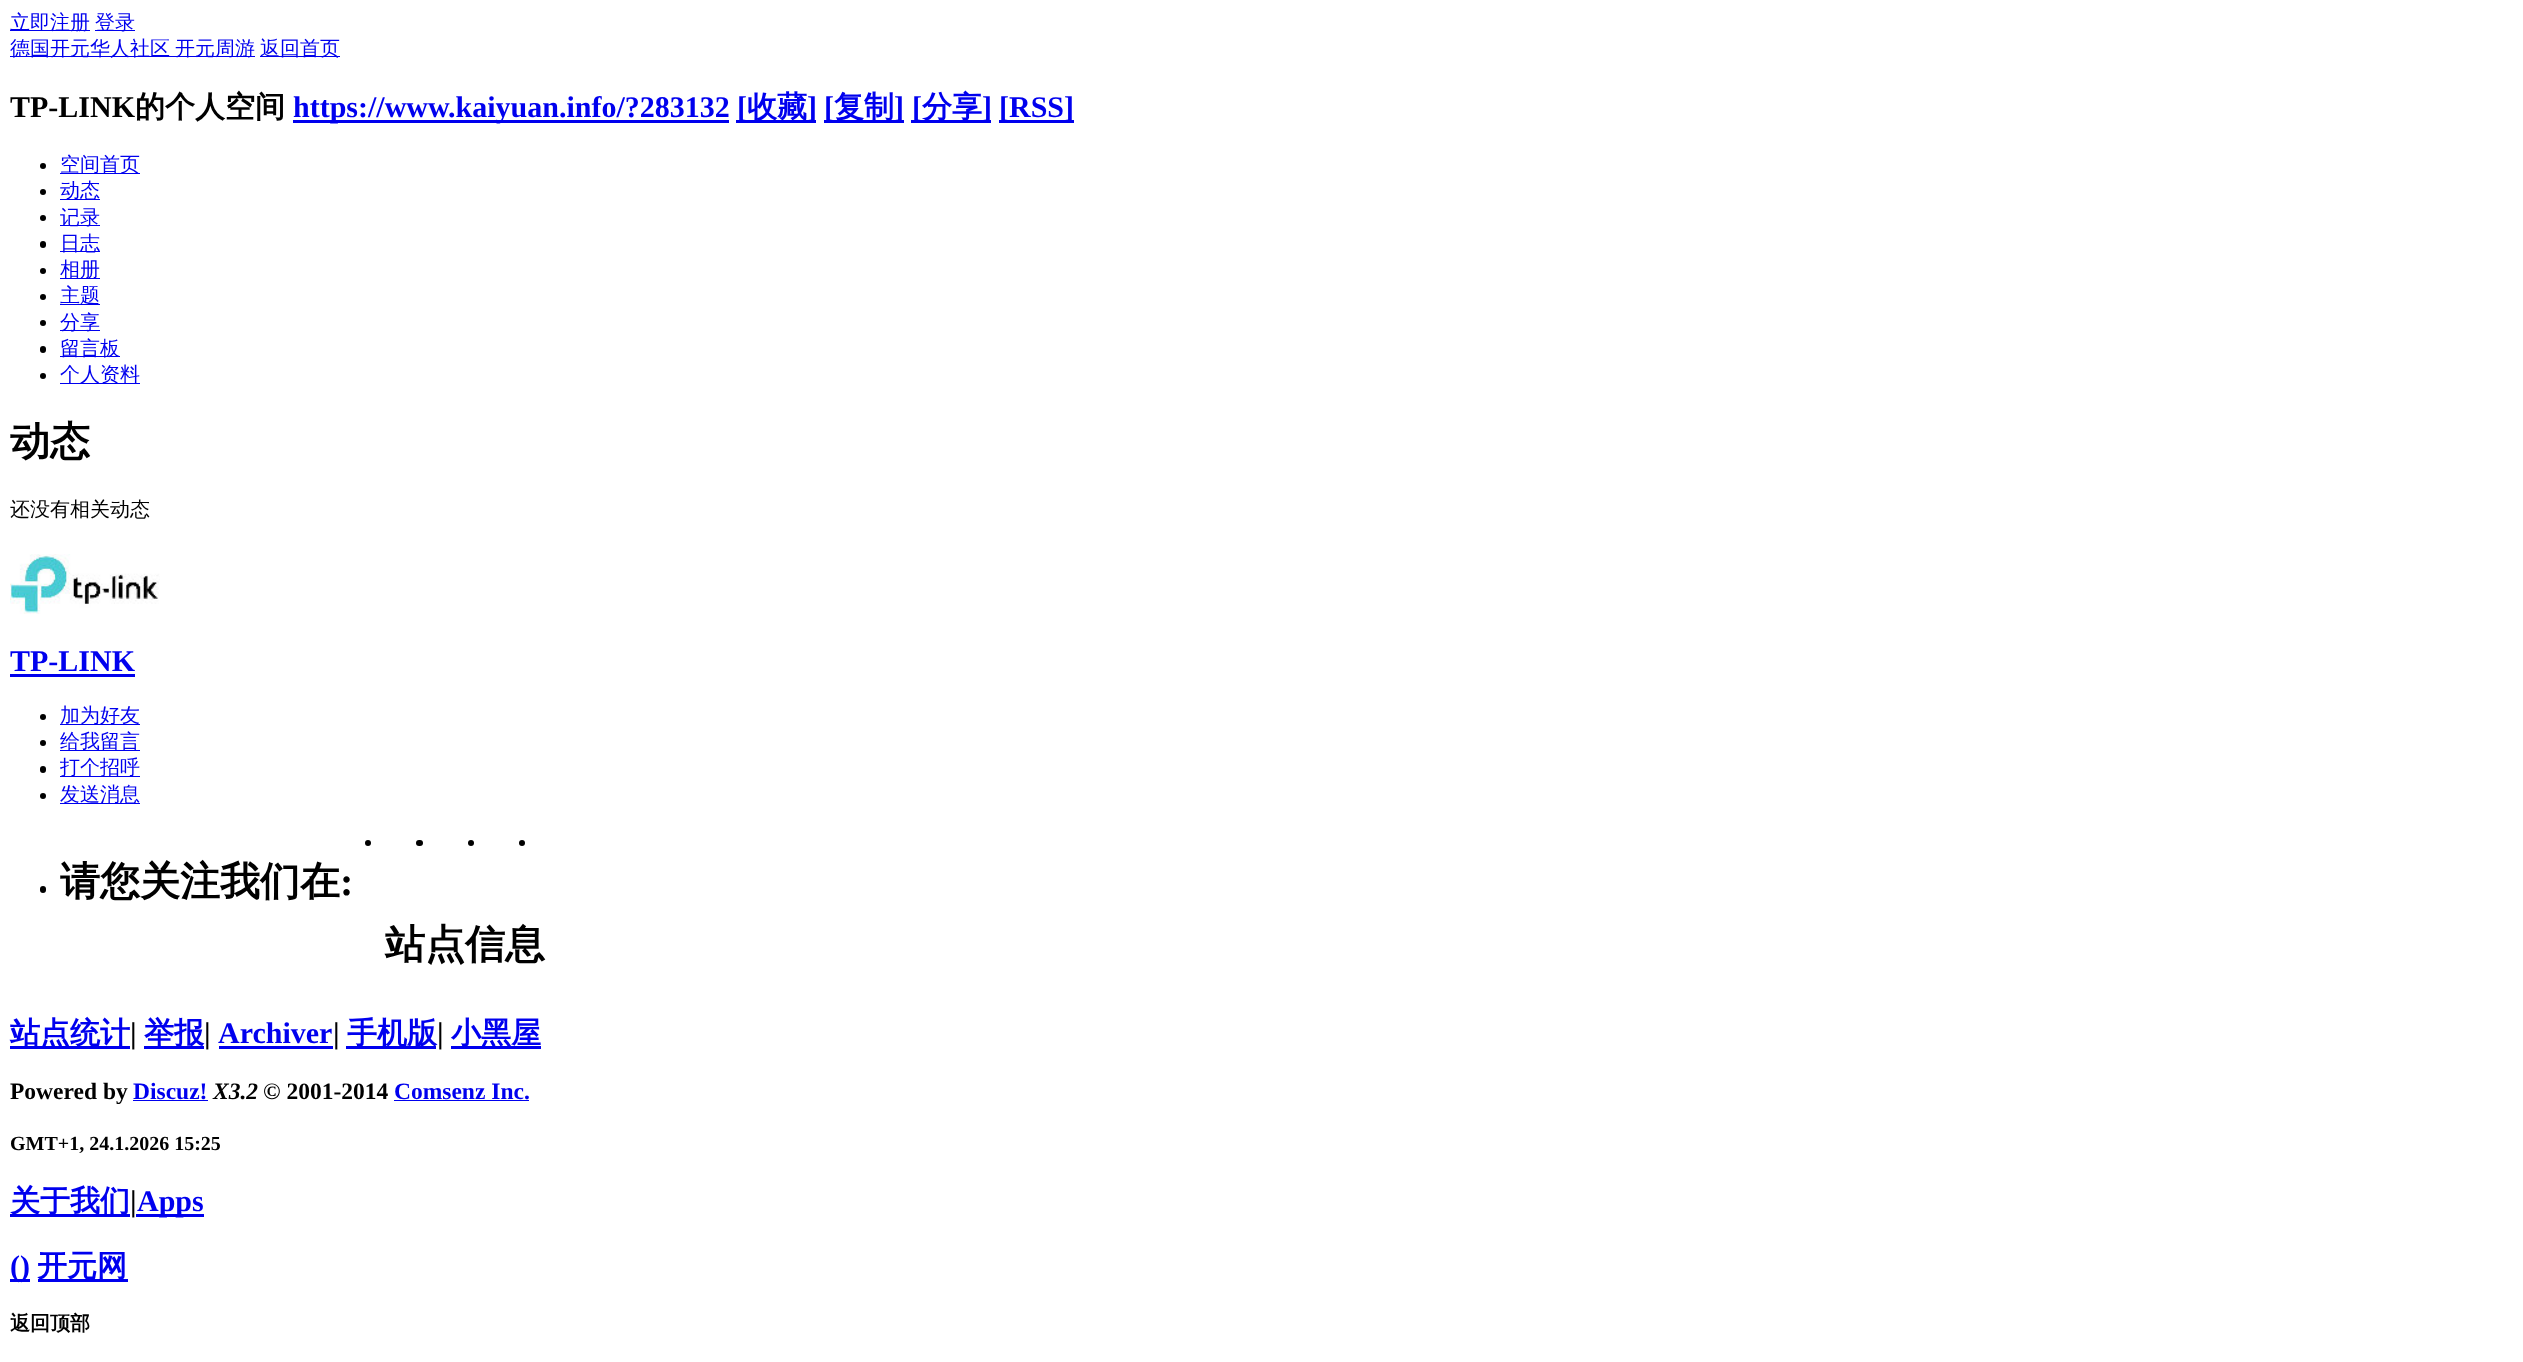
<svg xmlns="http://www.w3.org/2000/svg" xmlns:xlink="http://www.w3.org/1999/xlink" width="2523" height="1362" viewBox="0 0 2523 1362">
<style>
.cls-1{font:500 20px WenQuanYi Zen Hei;fill:#0000ee}
.cls-2{font:bold 30px Liberation Serif;fill:#000000}
.cls-3{font:bold 30px WenQuanYi Zen Hei;fill:#000000}
.cls-4{font:bold 30px Liberation Serif;fill:#0000ee}
.cls-5{font:bold 30px WenQuanYi Zen Hei;fill:#0000ee}
.cls-6{font:bold 40px WenQuanYi Zen Hei;fill:#000000}
.cls-7{font:500 20px WenQuanYi Zen Hei;fill:#000000}
.cls-8{font:bold 40px Liberation Serif;fill:#000000}
.cls-9{font:bold 23.5px Liberation Serif;fill:#000000}
.cls-10{font:bold 23.5px Liberation Serif;fill:#0000ee}
.cls-11{font:italic bold 23.5px Liberation Serif;fill:#000000}
.cls-12{font:bold 20px Liberation Serif;fill:#000000}
.cls-13{font:bold 20px WenQuanYi Zen Hei;fill:#000000}
</style>
<rect width="100%" height="100%" fill="#ffffff"/>
<rect fill="#0000ee" x="10" y="30" width="80" height="1"/>
<rect fill="#0000ee" x="95" y="30" width="40" height="1"/>
<rect fill="#0000ee" x="10" y="56" width="245" height="1"/>
<rect fill="#0000ee" x="260" y="56" width="80" height="1"/>
<rect fill="#0000ee" x="293" y="120" width="436" height="3"/>
<rect fill="#0000ee" x="736" y="120" width="80" height="3"/>
<rect fill="#0000ee" x="824" y="120" width="80" height="3"/>
<rect fill="#0000ee" x="911" y="120" width="80" height="3"/>
<rect fill="#0000ee" x="999" y="120" width="75" height="3"/>
<circle fill="#000000" cx="43" cy="166" r="3"/>
<rect fill="#0000ee" x="60" y="173" width="80" height="1"/>
<circle fill="#000000" cx="43" cy="192" r="3"/>
<rect fill="#0000ee" x="60" y="199" width="40" height="1"/>
<circle fill="#000000" cx="43" cy="218" r="3"/>
<rect fill="#0000ee" x="60" y="225" width="40" height="1"/>
<rect fill="#000000" x="40" y="241" width="6" height="7" rx="3"/>
<rect fill="#0000ee" x="60" y="251" width="40" height="1"/>
<circle fill="#000000" cx="43" cy="271" r="3"/>
<rect fill="#0000ee" x="60" y="278" width="40" height="1"/>
<circle fill="#000000" cx="43" cy="297" r="3"/>
<rect fill="#0000ee" x="60" y="304" width="40" height="1"/>
<circle fill="#000000" cx="43" cy="323" r="3"/>
<rect fill="#0000ee" x="60" y="330" width="40" height="1"/>
<rect fill="#000000" x="40" y="346" width="6" height="7" rx="3"/>
<rect fill="#0000ee" x="60" y="356" width="60" height="1"/>
<circle fill="#000000" cx="43" cy="376" r="3"/>
<rect fill="#0000ee" x="60" y="383" width="80" height="1"/>
<image xlink:href="image0.png" x="10" y="554" width="150" height="60"/>
<rect fill="#0000ee" x="10" y="674" width="125" height="3"/>
<circle fill="#000000" cx="43" cy="717" r="3"/>
<rect fill="#0000ee" x="60" y="724" width="80" height="1"/>
<circle fill="#000000" cx="43" cy="743" r="3"/>
<rect fill="#0000ee" x="60" y="750" width="80" height="1"/>
<rect fill="#000000" x="40" y="766" width="6" height="7" rx="3"/>
<rect fill="#0000ee" x="60" y="776" width="80" height="1"/>
<circle fill="#000000" cx="43" cy="796" r="3"/>
<rect fill="#0000ee" x="60" y="803" width="80" height="1"/>
<circle fill="#000000" cx="368" cy="843" r="3"/>
<rect fill="#000000" x="416" y="840" width="7" height="6" rx="3"/>
<circle fill="#000000" cx="471" cy="843" r="3"/>
<circle fill="#000000" cx="522" cy="843" r="3"/>
<rect fill="#000000" x="40" y="886" width="6" height="7" rx="3"/>
<rect fill="#0000ee" x="10" y="1046" width="120" height="3"/>
<rect fill="#0000ee" x="144" y="1046" width="60" height="3"/>
<rect fill="#0000ee" x="219" y="1046" width="114" height="3"/>
<rect fill="#0000ee" x="346" y="1046" width="90" height="3"/>
<rect fill="#0000ee" x="451" y="1046" width="90" height="3"/>
<rect fill="#0000ee" x="133" y="1100" width="75" height="1"/>
<rect fill="#0000ee" x="394" y="1100" width="135" height="1"/>
<rect fill="#0000ee" x="10" y="1214" width="120" height="3"/>
<rect fill="#0000ee" x="136" y="1214" width="68" height="3"/>
<rect fill="#0000ee" x="10" y="1279" width="20" height="3"/>
<rect fill="#0000ee" x="38" y="1279" width="90" height="3"/>
<text class="cls-1" x="10" y="29">立即注册</text>
<text class="cls-1" x="95" y="29">登录</text>
<text class="cls-1" x="10" y="55" word-spacing="-1">德国开元华人社区 开元周游</text>
<text class="cls-1" x="260" y="55">返回首页</text>
<text class="cls-2" x="10" y="117">TP-LINK</text>
<text class="cls-3" x="135" y="117">的个人空间</text>
<text class="cls-4" x="293" y="117">https://www.kaiyuan.info/?283132</text>
<text class="cls-4" x="737" y="117">[</text>
<text class="cls-5" x="747" y="117">收藏</text>
<text class="cls-4" x="807" y="117">]</text>
<text class="cls-4" x="824" y="117">[</text>
<text class="cls-5" x="834" y="117">复制</text>
<text class="cls-4" x="894" y="117">]</text>
<text class="cls-4" x="912" y="117">[</text>
<text class="cls-5" x="922" y="117">分享</text>
<text class="cls-4" x="982" y="117">]</text>
<text class="cls-4" x="999" y="117">[RSS]</text>
<text class="cls-1"><tspan x="60" y="171">空间首页</tspan><tspan x="60" y="197">动态</tspan><tspan x="60" y="224">记录</tspan><tspan x="60" y="250">日志</tspan><tspan x="60" y="276">相册</tspan><tspan x="60" y="302">主题</tspan><tspan x="60" y="329">分享</tspan><tspan x="60" y="355">留言板</tspan><tspan x="60" y="381">个人资料</tspan></text>
<text class="cls-6" x="10" y="455">动态</text>
<text class="cls-7" x="10" y="516">还没有相关动态</text>
<text class="cls-4" x="10" y="671">TP-LINK</text>
<text class="cls-1"><tspan x="60" y="722">加为好友</tspan><tspan x="60" y="748">给我留言</tspan><tspan x="60" y="774">打个招呼</tspan><tspan x="60" y="801">发送消息</tspan></text>
<text class="cls-6" x="60" y="895">请您关注我们在</text>
<text class="cls-8" x="340" y="895">:</text>
<text class="cls-6" x="385" y="958">站点信息</text>
<text class="cls-5" x="10" y="1043">站点统计</text>
<text class="cls-2" x="130" y="1043">|</text>
<text class="cls-5" x="144" y="1043">举报</text>
<text class="cls-2" x="204" y="1043">|</text>
<text class="cls-4" x="218" y="1043">Archiver</text>
<text class="cls-2" x="333" y="1043">|</text>
<text class="cls-5" x="347" y="1043">手机版</text>
<text class="cls-2" x="437" y="1043">|</text>
<text class="cls-5" x="451" y="1043">小黑屋</text>
<text class="cls-9" x="10" y="1099">Powered by</text>
<text class="cls-10" x="133" y="1099">Discuz!</text>
<text class="cls-11" x="213" y="1099">X3.2</text>
<text class="cls-9" x="263" y="1099">© 2001-2014</text>
<text class="cls-10" x="394" y="1099">Comsenz Inc.</text>
<text class="cls-12" x="10" y="1150">GMT+1, 24.1.2026 15:25</text>
<text class="cls-5" x="10" y="1211">关于我们</text>
<text class="cls-2" x="130" y="1211">|</text>
<text class="cls-4" x="137" y="1211">Apps</text>
<text class="cls-4" x="10" y="1276">()</text>
<text class="cls-5" x="37" y="1276">开元网</text>
<text class="cls-13" x="10" y="1330">返回顶部</text>
</svg>
